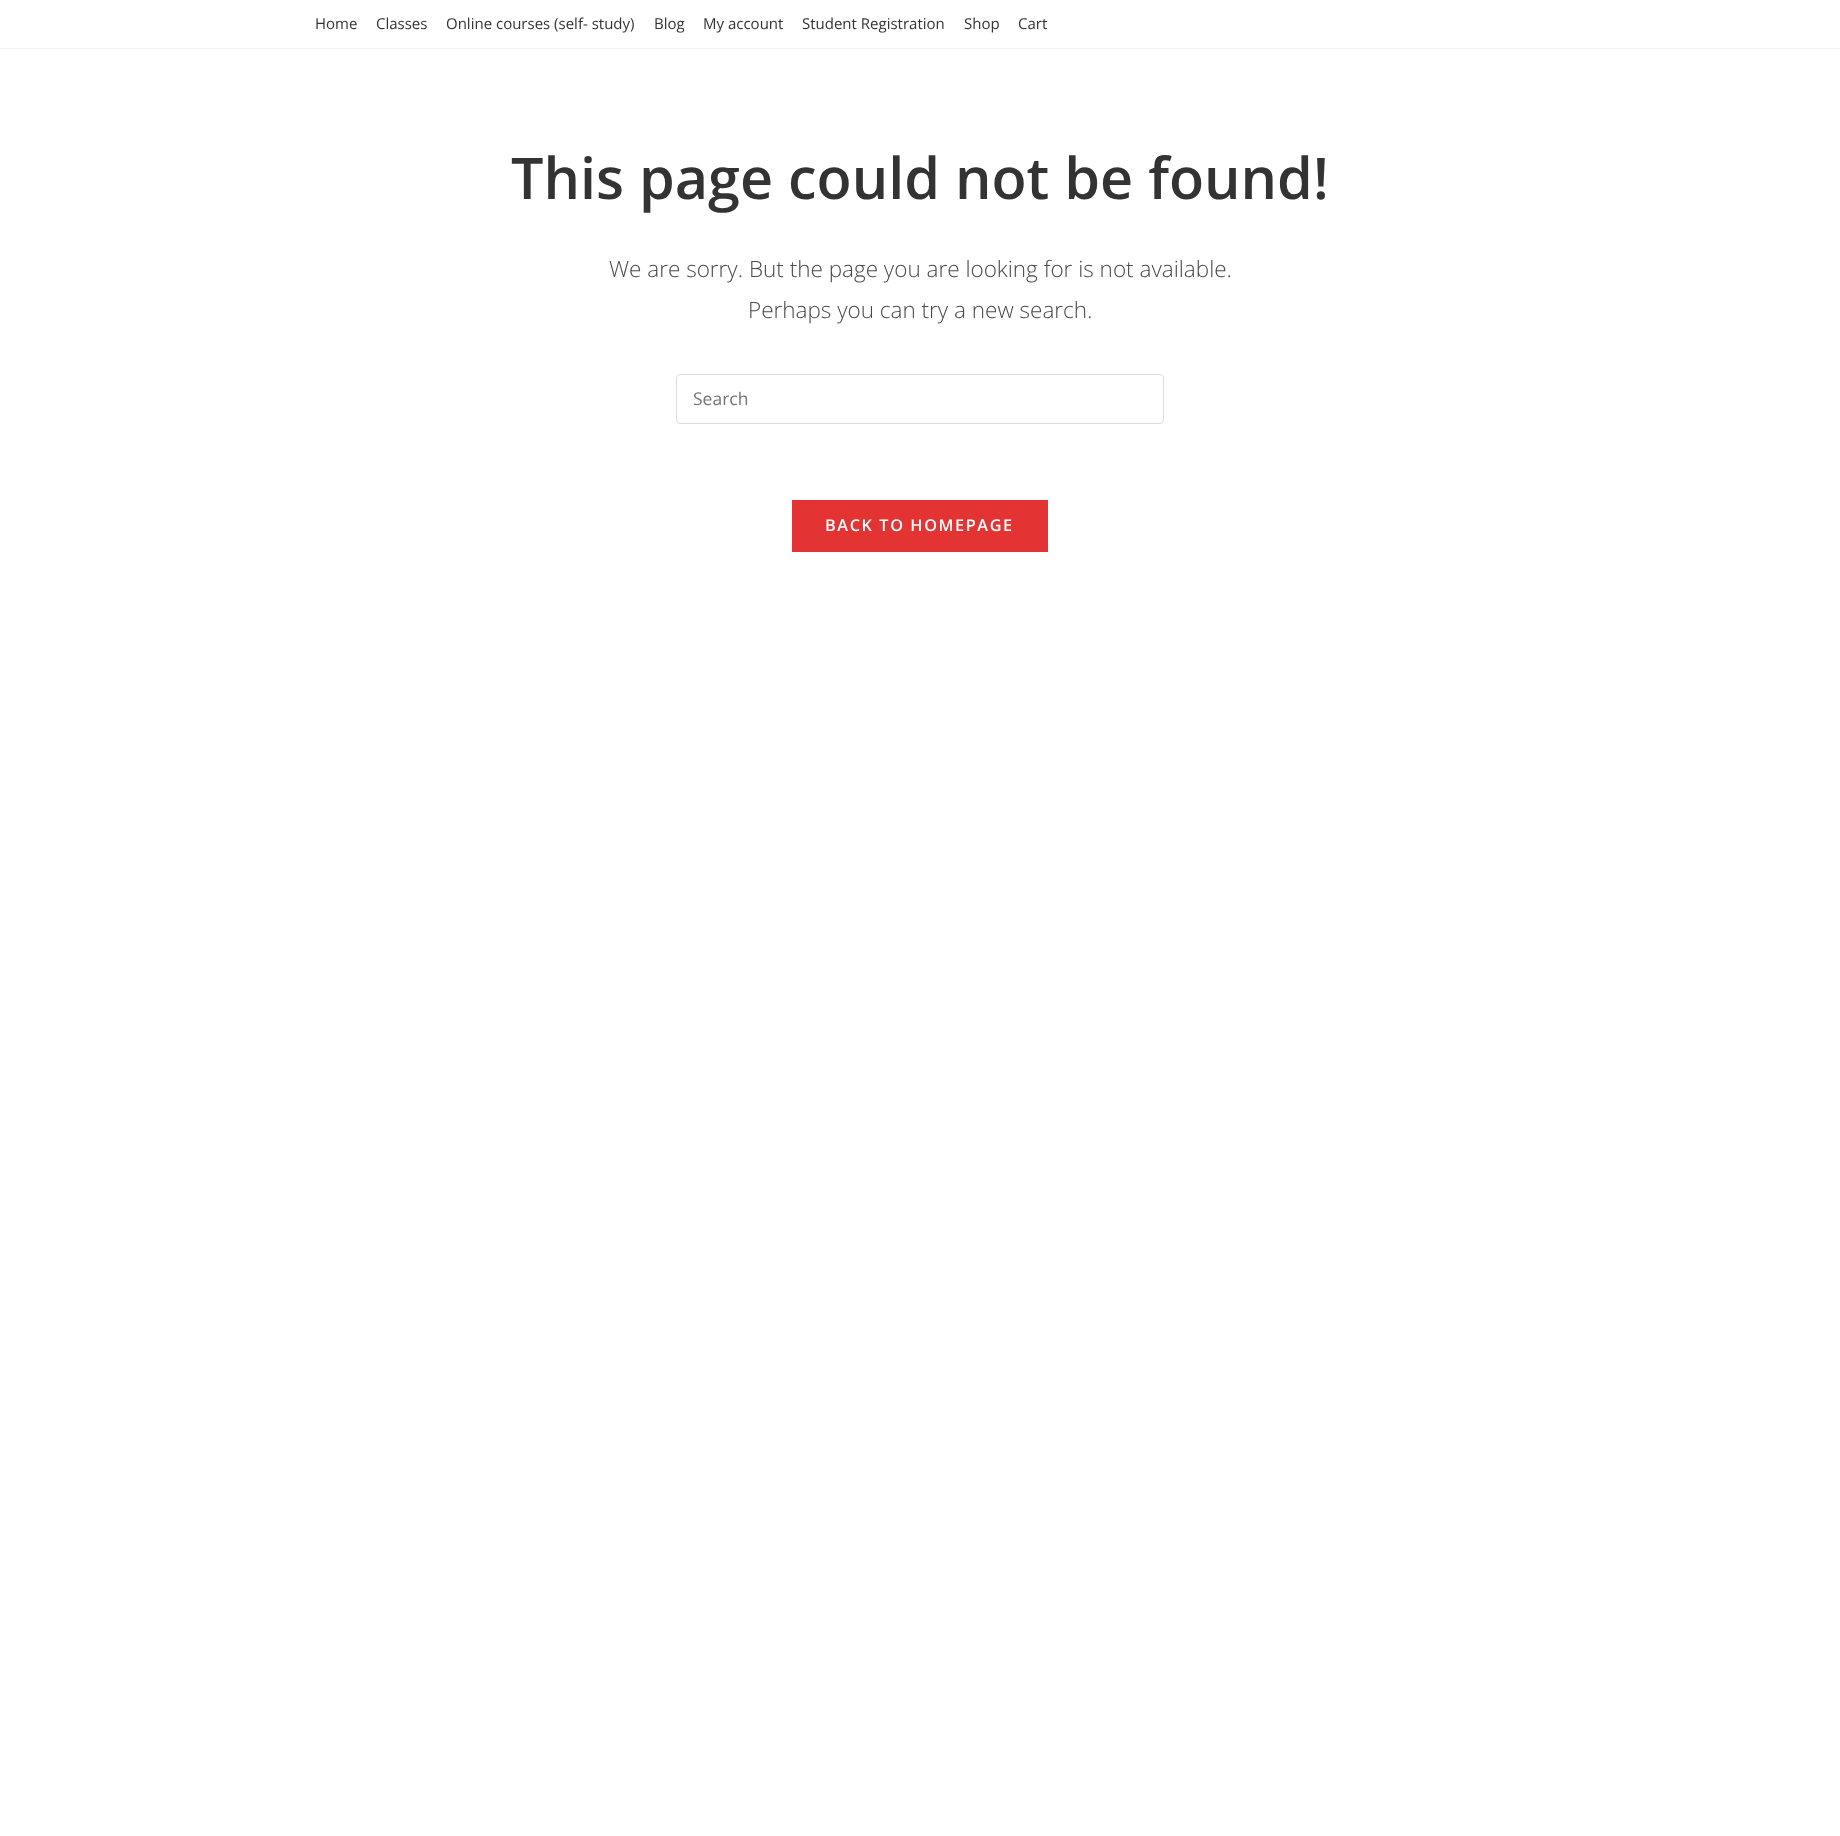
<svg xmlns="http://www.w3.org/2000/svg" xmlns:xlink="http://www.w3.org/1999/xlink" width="1840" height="1836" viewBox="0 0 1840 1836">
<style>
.cls-1{font:15px Open Sans;fill:#333333}
.cls-2{font:600 57.5px Open Sans;fill:#333333}
.cls-3{font:300 22.5px Open Sans;fill:#4a4a4a}
.cls-4{font:17.5px Open Sans;fill:#757575}
.cls-5{font:600 16.25px Open Sans;letter-spacing:1.6px;fill:#ffffff}
</style>
<rect width="100%" height="100%" fill="#ffffff"/>
<rect fill="#f1f1f1" x="0" y="48" width="1840" height="1"/>
<rect fill="none" stroke="#dddddd" x="676.5" y="374.5" width="487" height="49" rx="3.5"/>
<rect fill="#e43333" x="792" y="500" width="256" height="52"/>
<text class="cls-1" x="315" y="29">Home</text>
<text class="cls-1" x="376" y="29">Classes</text>
<text class="cls-1" x="446" y="29">Online courses (self- study)</text>
<text class="cls-1" x="654" y="29">Blog</text>
<text class="cls-1" x="703" y="29">My account</text>
<text class="cls-1" x="802" y="29">Student Registration</text>
<text class="cls-1" x="964" y="29">Shop</text>
<text class="cls-1" x="1018" y="29">Cart</text>
<text class="cls-2" x="511" y="199">This page could not be found!</text>
<text class="cls-3" x="609" y="277">We are sorry. But the page you are looking for is not available.</text>
<text class="cls-3" x="748" y="318">Perhaps you can try a new search.</text>
<text class="cls-4" x="693" y="405">Search</text>
<text class="cls-5" x="825" y="531">BACK TO HOMEPAGE</text>
</svg>
